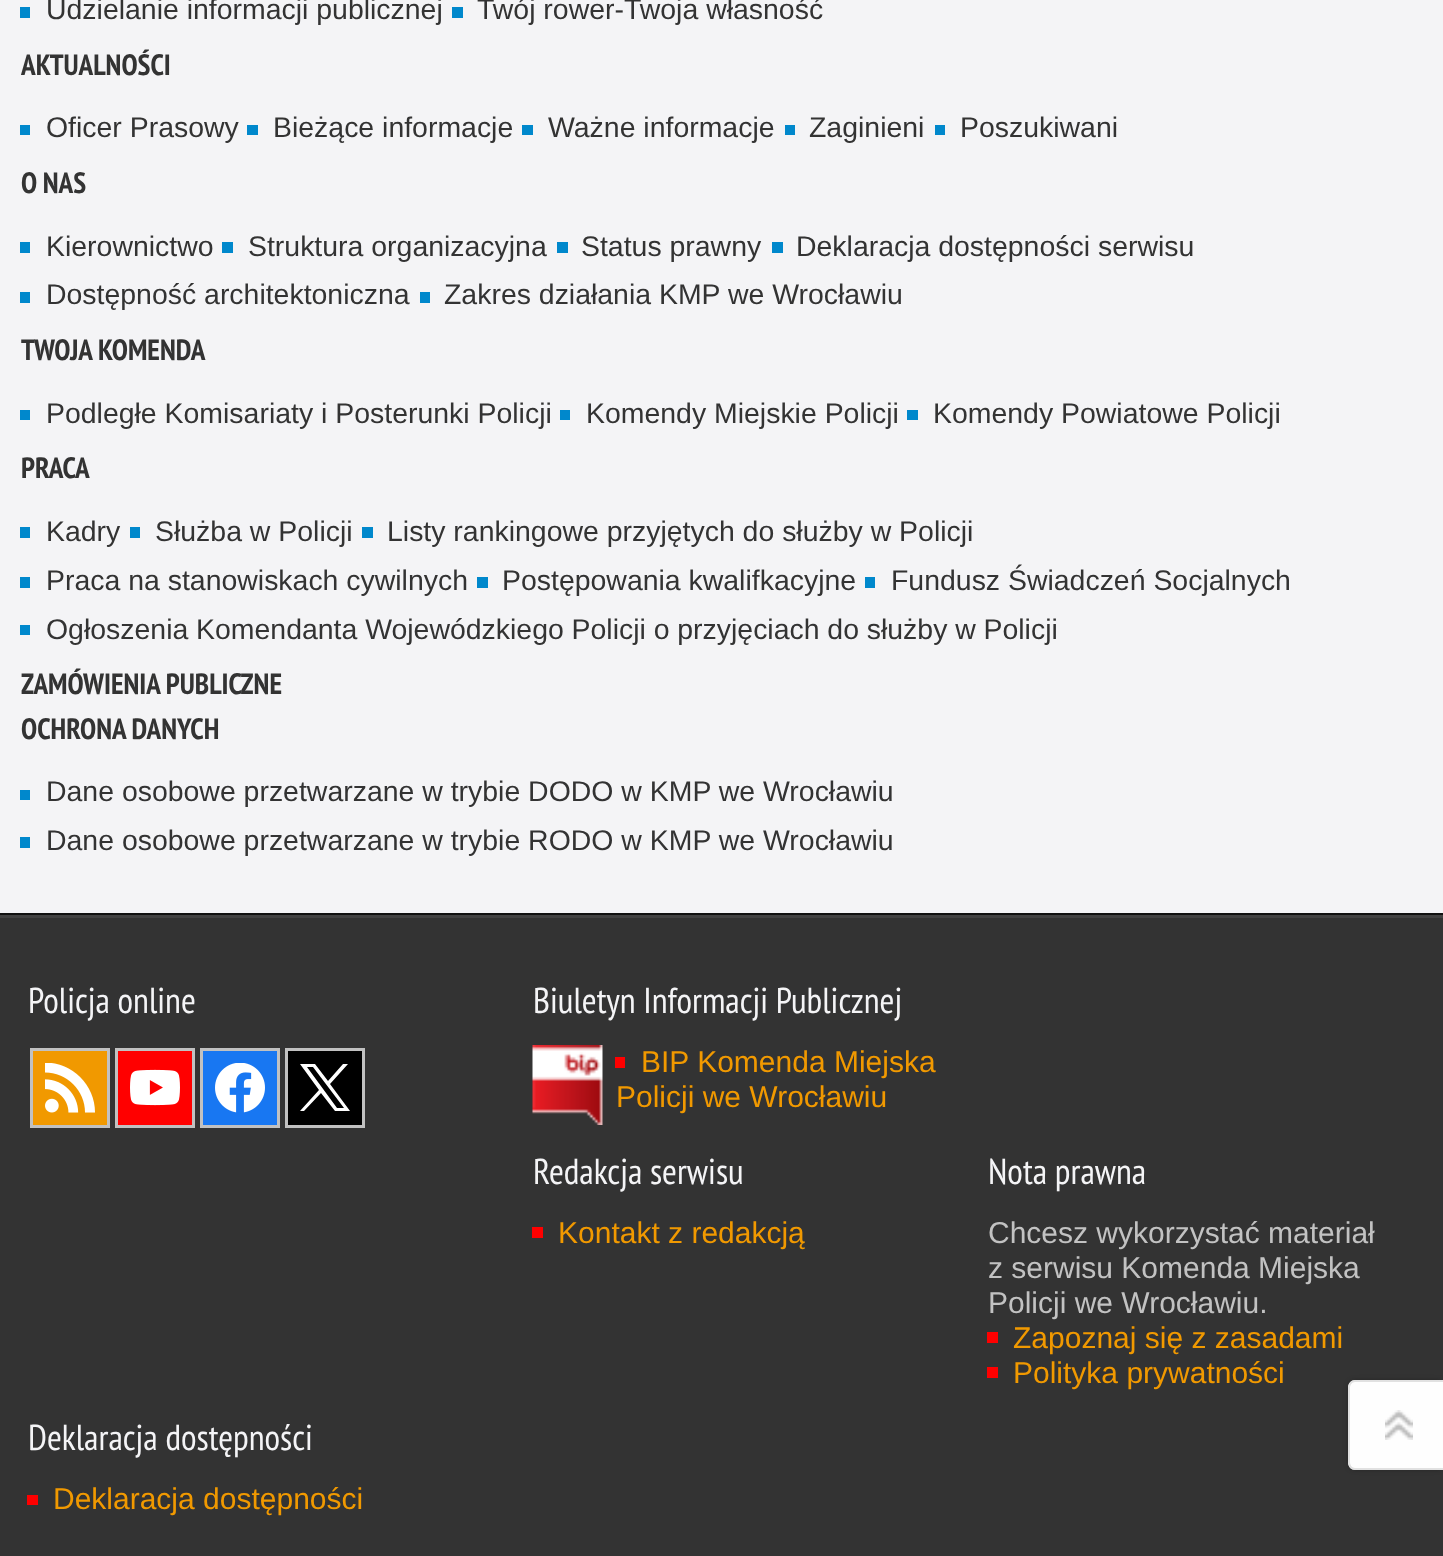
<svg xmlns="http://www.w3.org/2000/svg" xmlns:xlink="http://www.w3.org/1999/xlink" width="1443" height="1556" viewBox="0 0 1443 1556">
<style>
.cls-1{font:28.45px Liberation Sans;fill:#333333}
.cls-2{font:bold 29.25px PT Sans Narrow;fill:#333333}
.cls-3{font:36px PT Sans Narrow;fill:#f4f4f6}
.cls-4{font:30px Liberation Sans;fill:#f19900}
.cls-5{font:30px Liberation Sans;fill:#c2c2c2}
</style>
<rect width="100%" height="100%" fill="#f4f4f6"/>
<rect fill="#111111" x="0" y="913" width="1443" height="2"/>
<rect fill="#0088cc" x="20" y="7" width="10" height="11"/>
<rect fill="#0088cc" x="452" y="7" width="11" height="11"/>
<rect fill="#0088cc" x="20" y="125" width="10" height="10"/>
<rect fill="#0088cc" x="247" y="125" width="11" height="10"/>
<rect fill="#0088cc" x="522" y="125" width="11" height="10"/>
<rect fill="#0088cc" x="785" y="125" width="10" height="10"/>
<rect fill="#0088cc" x="935" y="125" width="10" height="10"/>
<rect fill="#0088cc" x="20" y="242" width="10" height="11"/>
<rect fill="#0088cc" x="222" y="242" width="11" height="11"/>
<rect fill="#0088cc" x="557" y="242" width="11" height="11"/>
<rect fill="#0088cc" x="772" y="242" width="11" height="11"/>
<rect fill="#0088cc" x="20" y="292" width="10" height="11"/>
<rect fill="#0088cc" x="420" y="292" width="10" height="11"/>
<rect fill="#0088cc" x="20" y="410" width="10" height="10"/>
<rect fill="#0088cc" x="560" y="410" width="10" height="10"/>
<rect fill="#0088cc" x="907" y="410" width="11" height="10"/>
<rect fill="#0088cc" x="20" y="527" width="10" height="11"/>
<rect fill="#0088cc" x="130" y="527" width="10" height="11"/>
<rect fill="#0088cc" x="362" y="527" width="11" height="11"/>
<rect fill="#0088cc" x="20" y="577" width="10" height="11"/>
<rect fill="#0088cc" x="477" y="577" width="11" height="11"/>
<rect fill="#0088cc" x="865" y="577" width="10" height="11"/>
<rect fill="#0088cc" x="20" y="625" width="10" height="10"/>
<rect fill="#0088cc" x="20" y="790" width="10" height="10"/>
<rect fill="#0088cc" x="20" y="837" width="10" height="11"/>
<rect fill="#333333" x="0" y="918" width="1443" height="638"/>
<rect fill="#424242" x="0" y="915" width="1443" height="3"/>
<rect fill="#f19900" x="33" y="1051" width="74" height="74"/>
<image xlink:href="image0.png" x="45" y="1063" width="50" height="50"/>
<rect fill="none" stroke="#c1c1c1" stroke-width="3" x="31.5" y="1049.5" width="77" height="77"/>
<rect fill="#ff0000" x="118" y="1051" width="74" height="74"/>
<image xlink:href="image1.png" x="130" y="1069" width="50" height="37"/>
<rect fill="none" stroke="#c1c1c1" stroke-width="3" x="116.5" y="1049.5" width="77" height="77"/>
<rect fill="#1877f2" x="203" y="1051" width="74" height="74"/>
<image xlink:href="image2.png" x="215" y="1063" width="50" height="50"/>
<rect fill="none" stroke="#c1c1c1" stroke-width="3" x="201.5" y="1049.5" width="77" height="77"/>
<rect fill="#000000" x="288" y="1051" width="74" height="74"/>
<path fill="#ffffff" d="M300 1064L319 1090L300 1111H304L321 1093L335 1111H350L330 1084L348 1064H343L328 1081L315 1064ZM307 1067H313L344 1108H337Z"/>
<rect fill="none" stroke="#c1c1c1" stroke-width="3" x="286.5" y="1049.5" width="77" height="77"/>
<image xlink:href="image3.png" x="532" y="1045" width="71" height="80"/>
<rect fill="#ff0000" x="615" y="1057" width="10" height="11"/>
<rect fill="#ff0000" x="532" y="1227" width="11" height="11"/>
<rect fill="#ff0000" x="987" y="1332" width="11" height="11"/>
<rect fill="#ff0000" x="987" y="1367" width="11" height="11"/>
<rect fill="#ff0000" x="27" y="1495" width="11" height="10"/>
<rect fill="#000000" fill-opacity="0.25" filter="blur(2.5px)" x="1348" y="1380" width="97" height="90" rx="8"/>
<path fill="#fefefe" d="M1356 1380H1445V1470H1356C1351.5 1470 1348 1466.5 1348 1462V1388C1348 1383.5 1351.5 1380 1356 1380Z"/>
<path fill="#e1e1e1" fill-rule="evenodd" d="M1355 1380H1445V1470H1355C1351 1470 1348 1467 1348 1462V1388C1348 1383 1351 1380 1355 1380ZM1355 1382H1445V1468H1355C1352 1468 1350 1465 1350 1462V1388C1350 1385 1352 1382 1355 1382Z"/>
<image xlink:href="image4.png" x="1385" y="1410" width="28" height="30"/>
<text class="cls-1" x="46" y="19">Udzielanie informacji publicznej</text>
<text class="cls-1" x="477" y="19">Twój rower-Twoja własność</text>
<text class="cls-2" x="21" y="75">AKTUALNOŚCI</text>
<text class="cls-1" x="46" y="137">Oficer Prasowy</text>
<text class="cls-1" x="273" y="137">Bieżące informacje</text>
<text class="cls-1" x="548" y="137">Ważne informacje</text>
<text class="cls-1" x="809" y="137">Zaginieni</text>
<text class="cls-1" x="960" y="137">Poszukiwani</text>
<text class="cls-2" x="21" y="193">O NAS</text>
<text class="cls-1" x="46" y="256">Kierownictwo</text>
<text class="cls-1" x="248" y="256">Struktura organizacyjna</text>
<text class="cls-1" x="581" y="256">Status prawny</text>
<text class="cls-1" x="796" y="256">Deklaracja dostępności serwisu</text>
<text class="cls-1" x="46" y="304">Dostępność architektoniczna</text>
<text class="cls-1" x="444" y="304">Zakres działania KMP we Wrocławiu</text>
<text class="cls-2" x="21" y="360">TWOJA KOMENDA</text>
<text class="cls-1" x="46" y="423">Podległe Komisariaty i Posterunki Policji</text>
<text class="cls-1" x="586" y="423">Komendy Miejskie Policji</text>
<text class="cls-1" x="933" y="423">Komendy Powiatowe Policji</text>
<text class="cls-2" x="21" y="478">PRACA</text>
<text class="cls-1" x="46" y="541">Kadry</text>
<text class="cls-1" x="155" y="541">Służba w Policji</text>
<text class="cls-1" x="387" y="541">Listy rankingowe przyjętych do służby w Policji</text>
<text class="cls-1" x="46" y="590">Praca na stanowiskach cywilnych</text>
<text class="cls-1" x="502" y="590">Postępowania kwalifkacyjne</text>
<text class="cls-1" x="891" y="590">Fundusz Świadczeń Socjalnych</text>
<text class="cls-1" x="46" y="639" word-spacing="-0.1">Ogłoszenia Komendanta Wojewódzkiego Policji o przyjęciach do służby w Policji</text>
<text class="cls-2"><tspan x="21" y="694">ZAMÓWIENIA PUBLICZNE</tspan><tspan x="21" y="739">OCHRONA DANYCH</tspan></text>
<text class="cls-1"><tspan x="46" y="801">Dane osobowe przetwarzane w trybie DODO w KMP we Wrocławiu</tspan><tspan x="46" y="850">Dane osobowe przetwarzane w trybie RODO w KMP we Wrocławiu</tspan></text>
<text class="cls-3" x="28" y="1013">Policja online</text>
<text class="cls-3" x="533" y="1013">Biuletyn Informacji Publicznej</text>
<text class="cls-4" x="641" y="1072">BIP Komenda Miejska</text>
<text class="cls-4" x="616" y="1107">Policji we Wrocławiu</text>
<text class="cls-3" x="533" y="1184">Redakcja serwisu</text>
<text class="cls-4" x="558" y="1243">Kontakt z redakcją</text>
<text class="cls-3" x="988" y="1184">Nota prawna</text>
<text class="cls-5"><tspan x="988" y="1243">Chcesz wykorzystać materiał</tspan><tspan x="988" y="1278">z serwisu Komenda Miejska</tspan><tspan x="988" y="1313">Policji we Wrocławiu.</tspan></text>
<text class="cls-4"><tspan x="1013" y="1348">Zapoznaj się z zasadami</tspan><tspan x="1013" y="1383">Polityka prywatności</tspan></text>
<text class="cls-3" x="28" y="1450">Deklaracja dostępności</text>
<text class="cls-4" x="53" y="1509">Deklaracja dostępności</text>
</svg>
